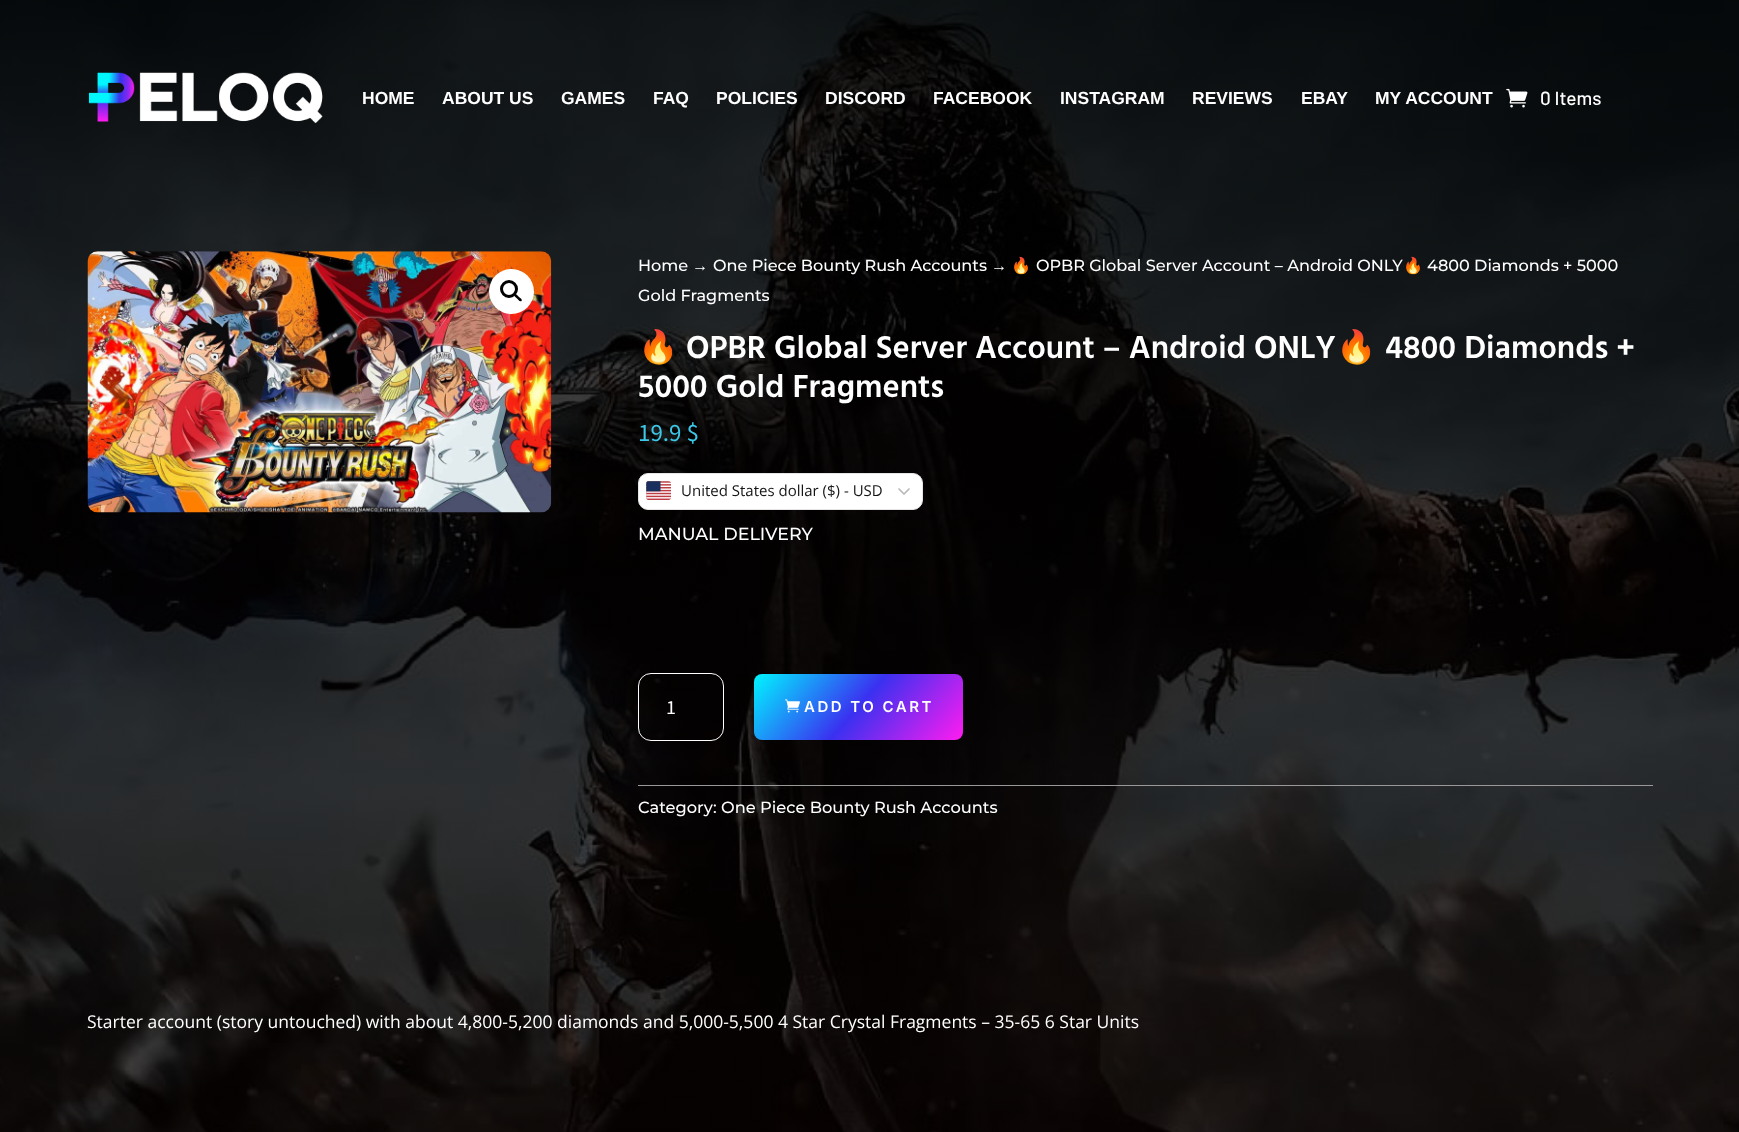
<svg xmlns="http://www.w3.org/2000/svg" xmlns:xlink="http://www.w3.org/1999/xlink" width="1739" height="1132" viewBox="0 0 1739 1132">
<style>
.cls-1{font:bold 17.5px Liberation Sans;fill:#ffffff}
.cls-2{font:500 19px Barlow;fill:#ffffff}
.cls-3{font:500 16.1px Montserrat;fill:#ffffff}
.cls-4{font:16.1px Liberation Sans;fill:#ffffff}
.cls-5{font:16.1px Noto Color Emoji;fill:#ffffff}
.cls-6{font:bold 32.5px Noto Color Emoji;fill:#ffffff}
.cls-7{font:600 32.5px Hind Vadodara;fill:#ffffff}
.cls-8{font:25px Source Sans Pro;fill:#3cc8e8}
.cls-9{font:15px Open Sans;fill:#151515}
.cls-10{font:500 17.5px Montserrat;fill:#ffffff}
.cls-11{font:20px Source Sans Pro;fill:#ffffff}
.cls-12{font:600 15px Inter;letter-spacing:2.5px;fill:#ffffff}
.cls-13{font:500 16.25px Montserrat;fill:#ffffff}
.cls-14{font:17.5px Open Sans;fill:#ffffff}
</style>
<defs>
<linearGradient id="g1" gradientUnits="userSpaceOnUse" x1="782" y1="641" x2="934" y2="773"><stop offset="0" stop-color="#00f7ff"/><stop offset="0.5" stop-color="#3a31f0"/><stop offset="1" stop-color="#ff1cf0"/></linearGradient>
</defs>
<rect width="100%" height="100%" fill="#ffffff"/>
<image xlink:href="image2.png" x="0" y="0" width="1739" height="1132"/>
<image xlink:href="image0.png" x="88" y="72" width="235" height="52"/>
<image xlink:href="image1.png" x="1506" y="88" width="22" height="20"/>
<image xlink:href="image3.png" x="87" y="251" width="465" height="262"/>
<circle fill="#ffffff" cx="511.5" cy="291.5" r="22.5"/>
<circle fill="none" stroke="#000000" stroke-width="3" cx="509" cy="289" r="7.5"/>
<path fill="#000000" d="M514.5 294C515.5 292.5 518 296 518.5 296.5C519.5 297.5 523 299.5 521.5 301C520 302.5 517.5 299 517 298.5C516 297.5 513 295.5 514.5 294Z"/>
<rect fill="#ffffff" stroke="#e5e5e5" x="638.5" y="473.5" width="284" height="36" rx="9.5"/>
<image xlink:href="image4.png" x="646" y="481" width="25" height="19"/>
<path fill="none" stroke="#b9b9b9" stroke-width="1.7" stroke-linecap="round" stroke-linejoin="round" d="M899 489L904 494L909 489"/>
<rect fill="none" stroke="#ffffff" x="638.5" y="673.5" width="85" height="67" rx="12.5"/>
<rect fill="url(#g1)" x="754" y="674" width="209" height="66" rx="8"/>
<image xlink:href="image5.png" x="785" y="699" width="15" height="14"/>
<rect fill="#999999" x="638" y="785" width="1015" height="1"/>
<text class="cls-1" x="362" y="104">HOME</text>
<text class="cls-1" x="442" y="104">ABOUT US</text>
<text class="cls-1" x="561" y="104">GAMES</text>
<text class="cls-1" x="653" y="104">FAQ</text>
<text class="cls-1" x="716" y="104">POLICIES</text>
<text class="cls-1" x="825" y="104">DISCORD</text>
<text class="cls-1" x="933" y="104">FACEBOOK</text>
<text class="cls-1" x="1060" y="104">INSTAGRAM</text>
<text class="cls-1" x="1192" y="104">REVIEWS</text>
<text class="cls-1" x="1301" y="104">EBAY</text>
<text class="cls-1" x="1375" y="104">MY ACCOUNT</text>
<text class="cls-2" x="1540" y="105">0 Items</text>
<text class="cls-3" x="638" y="271">Home</text>
<text class="cls-4" x="692" y="271">→</text>
<text class="cls-3" x="713" y="271">One Piece Bounty Rush Accounts</text>
<text class="cls-4" x="991" y="271">→</text>
<text class="cls-5" x="1011" y="271">🔥</text>
<text class="cls-3" x="1036" y="271">OPBR Global Server Account – Android ONLY</text>
<text class="cls-5" x="1403" y="271">🔥</text>
<text class="cls-3" x="1427" y="271">4800 Diamonds + 5000</text>
<text class="cls-3" x="638" y="301">Gold Fragments</text>
<text class="cls-6" x="638" y="358">🔥</text>
<text class="cls-7" x="686" y="358">OPBR Global Server Account – Android ONLY</text>
<text class="cls-6" x="1336" y="358">🔥</text>
<text class="cls-7" x="1385" y="358">4800 Diamonds +</text>
<text class="cls-7" x="638" y="397">5000 Gold Fragments</text>
<text class="cls-8" x="638" y="441">19.9 $</text>
<text class="cls-9" x="681" y="496">United States dollar ($) - USD</text>
<text class="cls-10" x="638" y="540">MANUAL DELIVERY</text>
<text class="cls-11" x="666" y="714">1</text>
<text class="cls-12" x="804" y="712">ADD TO CART</text>
<text class="cls-13" x="638" y="813">Category: One Piece Bounty Rush Accounts</text>
<text class="cls-14" x="87" y="1028">Starter account (story untouched) with about 4,800-5,200 diamonds and 5,000-5,500 4 Star Crystal Fragments – 35-65 6 Star Units</text>
</svg>
